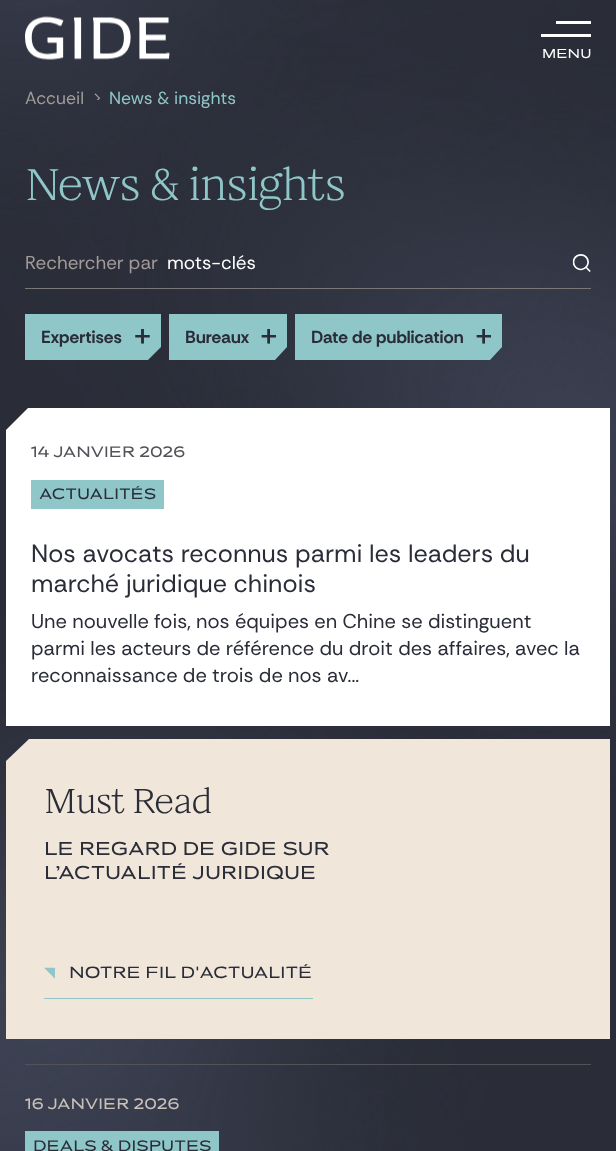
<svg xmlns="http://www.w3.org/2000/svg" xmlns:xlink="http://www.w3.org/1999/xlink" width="616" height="1151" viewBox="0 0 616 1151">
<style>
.cls-1{font:14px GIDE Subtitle;fill:#ffffff}
.cls-2{font:100 17.5px Rethink Sans;fill:#a19c99}
.cls-3{font:100 17.5px Rethink Sans;fill:#8fc7c8}
.cls-4{font:300 50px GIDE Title;fill:#8fc7c8}
.cls-5{font:100 18.75px Rethink Sans;fill:#a19c99}
.cls-6{font:100 18.75px Rethink Sans;fill:#ffffff}
.cls-7{font:100 17.5px 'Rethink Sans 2';fill:#2a2d38}
.cls-8{font:16.25px GIDE Subtitle;fill:#525258}
.cls-9{font:16.25px GIDE Subtitle;fill:#2a2d38}
.cls-10{font:100 25px Rethink Sans;fill:#2a2d38}
.cls-11{font:100 20px Rethink Sans;fill:#2a2d38}
.cls-12{font:300 38.75px GIDE Title;fill:#2a2d38}
.cls-13{font:20px GIDE Subtitle;fill:#2a2d38}
.cls-14{font:17.5px GIDE Subtitle;fill:#2a2d38}
.cls-15{font:16.25px GIDE Subtitle;fill:#c9c1ba}
</style>
<rect width="100%" height="100%" fill="#ffffff"/>
<image xlink:href="image0.png" x="0" y="0" width="616" height="1151"/>
<image xlink:href="image1.png" x="25" y="16" width="145" height="44"/>
<rect fill="#ffffff" x="556" y="21" width="35" height="3"/>
<rect fill="#ffffff" x="541" y="34" width="50" height="3"/>
<image xlink:href="image2.png" x="94" y="93" width="7" height="7"/>
<rect fill="#7a7779" x="25" y="288" width="566" height="1"/>
<image xlink:href="image3.png" x="572" y="254" width="19" height="18"/>
<path fill="#8fc7c8" d="M25 314V360H148L161 347V314Z"/>
<image xlink:href="image4.png" x="135" y="329" width="15" height="15"/>
<path fill="#8fc7c8" d="M169 314H287V347L275 360H169Z"/>
<image xlink:href="image5.png" x="261" y="329" width="15" height="15"/>
<path fill="#8fc7c8" d="M295 314H502V347L490 360H295Z"/>
<image xlink:href="image5.png" x="476" y="329" width="15" height="15"/>
<path fill="#ffffff" d="M6 726V430L28 408H610V726Z"/>
<rect fill="#8fc7c8" x="31" y="480" width="133" height="29"/>
<path fill="#f1e6da" d="M610 1039V739H29L6 761V1039Z"/>
<image xlink:href="image6.png" x="44" y="967" width="11" height="12"/>
<rect fill="#8fc7c8" x="44" y="998" width="269" height="1"/>
<rect fill="#525258" x="25" y="1064" width="566" height="1"/>
<rect fill="#8fc7c8" x="25" y="1131" width="194" height="20"/>
<text class="cls-1" x="542" y="58">Menu</text>
<text class="cls-2" x="25" y="104">Accueil</text>
<text class="cls-3" x="109" y="104">News &amp; insights</text>
<text class="cls-4" x="25" y="200">News &amp; insights</text>
<text class="cls-5" x="25" y="269">Rechercher par</text>
<text class="cls-6" x="167" y="269">mots-clés</text>
<text class="cls-7" x="41" y="343">Expertises</text>
<text class="cls-7" x="185" y="343">Bureaux</text>
<text class="cls-7" x="311" y="343">Date de publication</text>
<text class="cls-8" x="31" y="457">14 janvier 2026</text>
<text class="cls-9" x="39" y="499">ACTUALITÉS</text>
<text class="cls-10"><tspan x="31" y="562">Nos avocats reconnus parmi les leaders du</tspan><tspan x="31" y="592">marché juridique chinois</tspan></text>
<text class="cls-11"><tspan x="31" y="628">Une nouvelle fois, nos équipes en Chine se distinguent</tspan><tspan x="31" y="655">parmi les acteurs de référence du droit des affaires, avec la</tspan><tspan x="31" y="682">reconnaissance de trois de nos av...</tspan></text>
<text class="cls-12" x="44" y="813">Must Read</text>
<text class="cls-13"><tspan x="44" y="855">Le regard de Gide sur</tspan><tspan x="44" y="879">l’actualité juridique</tspan></text>
<text class="cls-14" x="69" y="978">Notre fil d'actualité</text>
<text class="cls-15" x="25" y="1109">16 janvier 2026</text>
<text class="cls-9" x="33" y="1151">DEALS &amp; DISPUTES</text>
</svg>
